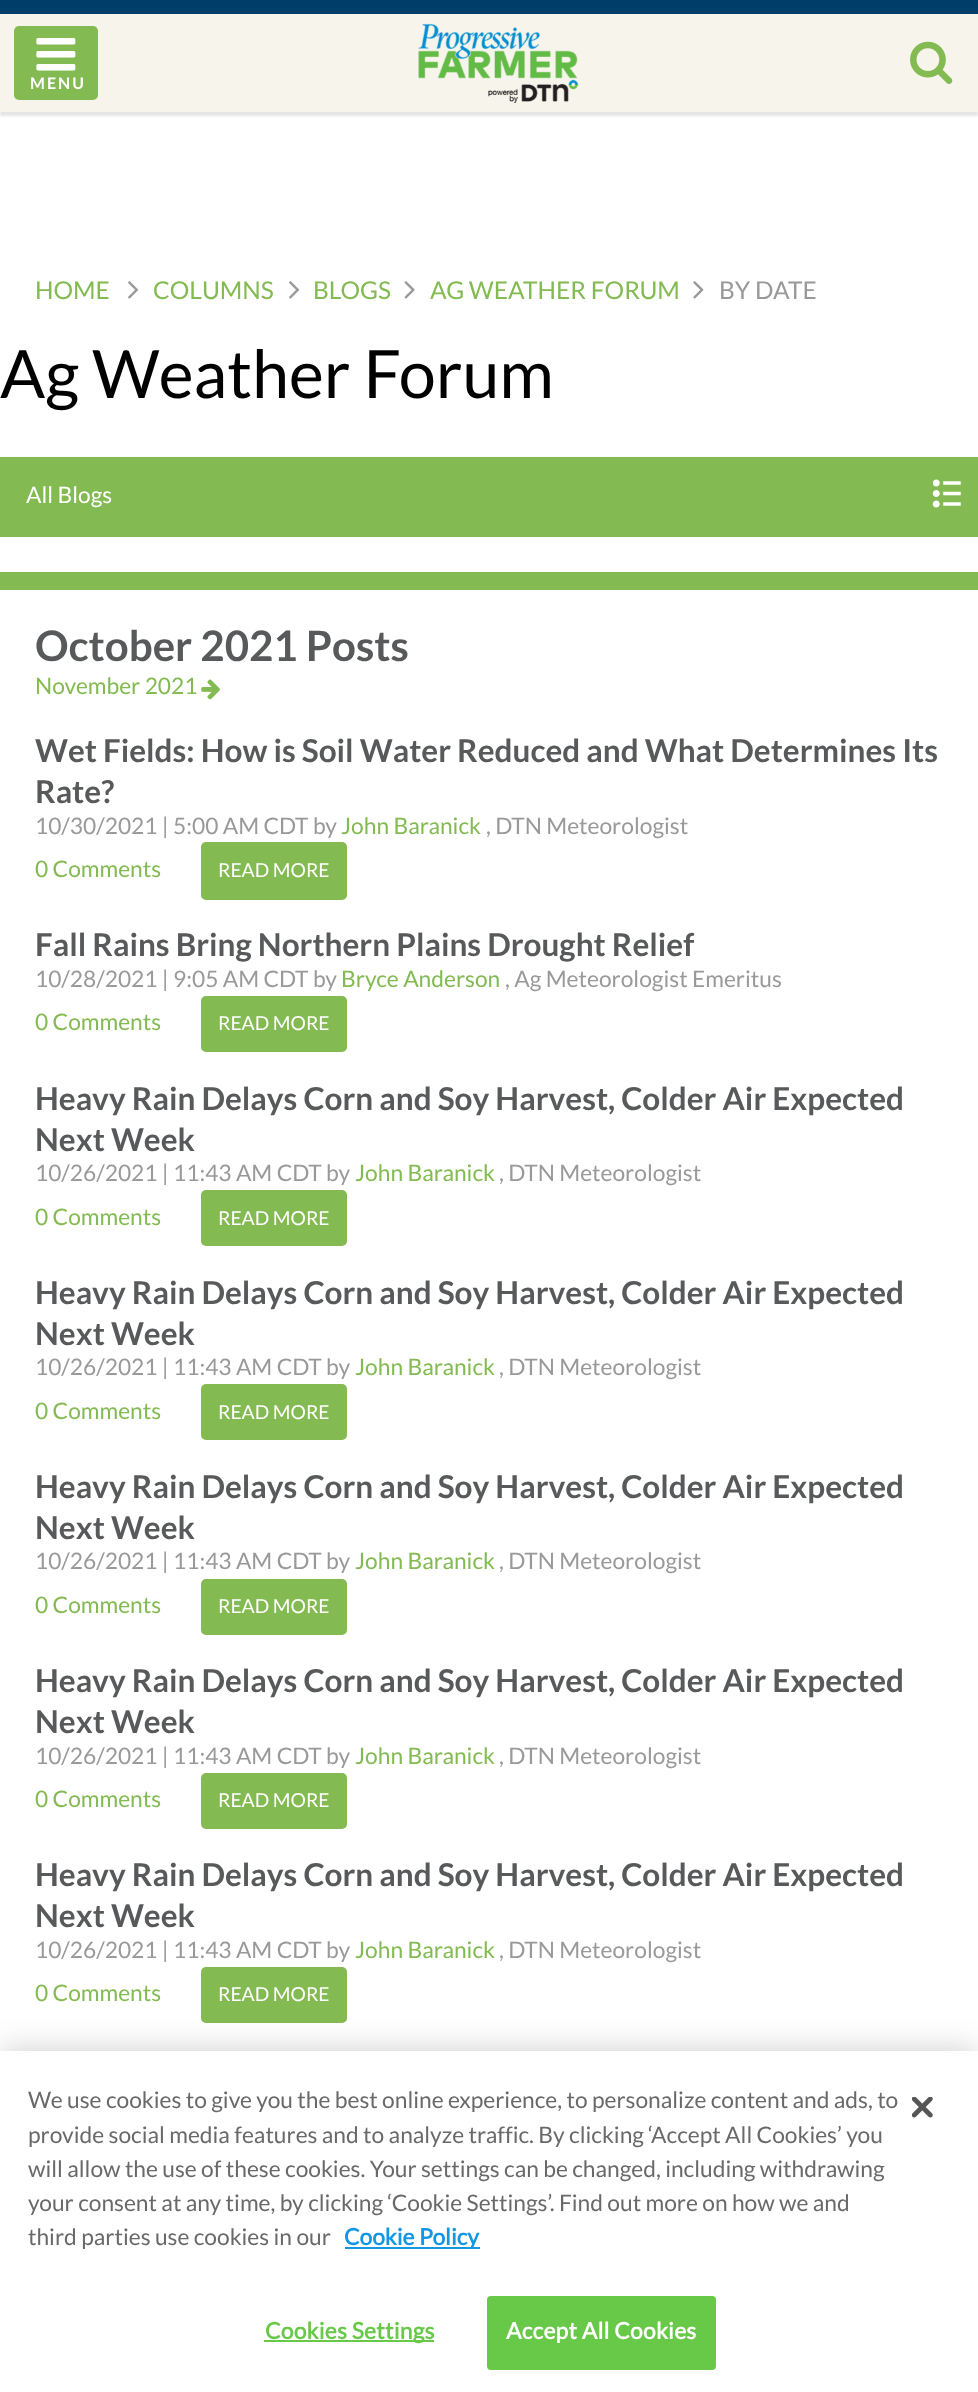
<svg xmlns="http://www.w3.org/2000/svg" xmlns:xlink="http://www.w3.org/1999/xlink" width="978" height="2392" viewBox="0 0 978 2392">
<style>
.cls-1{font:bold 16px Lato;letter-spacing:2px;fill:#ffffff}
.cls-2{font:24.5px Lato;fill:#83ba51}
.cls-3{font:24.5px Lato;fill:#999999}
.cls-4{font:66.5px Lato;fill:#000000}
.cls-5{font:22.75px Lato;fill:#ffffff}
.cls-6{font:bold 42px Lato;fill:#58595b}
.cls-7{font:22.75px Lato;fill:#83ba51}
.cls-8{font:bold 31.5px Lato;fill:#58595b}
.cls-9{font:22.75px Lato;fill:#999999}
.cls-10{font:19.25px Lato;fill:#ffffff}
.cls-11{font:22.75px Lato;fill:#696969}
.cls-12{font:bold 22.75px 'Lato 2';fill:#1497e3}
.cls-13{font:bold 22.75px 'Lato 2';letter-spacing:0.25px;fill:#68c949}
.cls-14{font:bold 22.75px 'Lato 2';letter-spacing:0.25px;fill:#ffffff}
</style>
<rect width="100%" height="100%" fill="#ffffff"/>
<rect fill="#000000" fill-opacity="0.1" filter="blur(1px)" x="0" y="4" width="978" height="112"/>
<rect fill="#f7f4eb" x="0" y="14" width="978" height="98"/>
<rect fill="#83ba51" x="14" y="26" width="84" height="74" rx="5"/>
<image xlink:href="image0.png" x="36" y="38" width="40" height="33"/>
<rect fill="#003e6a" x="0" y="0" width="978" height="14"/>
<image xlink:href="image1.png" x="418" y="23" width="161" height="80"/>
<image xlink:href="image2.png" x="910" y="41" width="43" height="43"/>
<image xlink:href="image3.png" x="128" y="281" width="11" height="18"/>
<image xlink:href="image3.png" x="289" y="281" width="11" height="18"/>
<image xlink:href="image4.png" x="404" y="281" width="11" height="18"/>
<image xlink:href="image5.png" x="693" y="281" width="11" height="18"/>
<rect fill="#83ba51" x="0" y="457" width="978" height="80"/>
<image xlink:href="image6.png" x="932" y="479" width="29" height="29"/>
<rect fill="#83ba51" x="0" y="572" width="978" height="18"/>
<image xlink:href="image7.png" x="201" y="679" width="19" height="21"/>
<rect fill="#83ba51" x="201" y="842" width="146" height="58" rx="5"/>
<rect fill="#83ba51" x="201" y="996" width="146" height="56" rx="5"/>
<rect fill="#83ba51" x="201" y="1190" width="146" height="56" rx="5"/>
<rect fill="#83ba51" x="201" y="1384" width="146" height="56" rx="5"/>
<rect fill="#83ba51" x="201" y="1579" width="146" height="56" rx="5"/>
<rect fill="#83ba51" x="201" y="1773" width="146" height="56" rx="5"/>
<rect fill="#83ba51" x="201" y="1967" width="146" height="56" rx="5"/>
<rect fill="#000000" fill-opacity="0.2" filter="blur(16px)" x="0" y="2051" width="978" height="341"/>
<rect fill="#ffffff" x="0" y="2051" width="978" height="341"/>
<rect fill="#1497e3" x="345" y="2247" width="135" height="2"/>
<rect fill="#68c949" x="264" y="2340" width="170" height="2"/>
<rect fill="#68c949" stroke="#68c949" stroke-width="2" x="488" y="2297" width="227" height="72" rx="3"/>
<image xlink:href="image8.png" x="912" y="2097" width="21" height="21"/>
<text class="cls-1" x="30" y="89">MENU</text>
<text class="cls-2" x="35" y="299">HOME</text>
<text class="cls-2" x="153" y="299">COLUMNS</text>
<text class="cls-2" x="313" y="299">BLOGS</text>
<text class="cls-2" x="430" y="299">AG WEATHER FORUM</text>
<text class="cls-3" x="719" y="299">BY DATE</text>
<text class="cls-4" x="0" y="398">Ag Weather Forum</text>
<text class="cls-5" x="26" y="503">All Blogs</text>
<text class="cls-6" x="35" y="661">October 2021 Posts</text>
<text class="cls-7" x="35" y="694">November 2021</text>
<text class="cls-8"><tspan x="35" y="762">Wet Fields: How is Soil Water Reduced and What Determines Its</tspan><tspan x="35" y="803">Rate?</tspan></text>
<text class="cls-9" x="35" y="834">10/30/2021 | 5:00 AM CDT by</text>
<text class="cls-7" x="341" y="834">John Baranick</text>
<text class="cls-9" x="486" y="834">, DTN Meteorologist</text>
<text class="cls-7" x="35" y="877">0 Comments</text>
<text class="cls-10" x="218" y="877">READ MORE</text>
<text class="cls-8" x="35" y="956">Fall Rains Bring Northern Plains Drought Relief</text>
<text class="cls-9" x="35" y="987">10/28/2021 | 9:05 AM CDT by</text>
<text class="cls-7" x="341" y="987">Bryce Anderson</text>
<text class="cls-9" x="505" y="987">, Ag Meteorologist Emeritus</text>
<text class="cls-7" x="35" y="1030">0 Comments</text>
<text class="cls-10" x="218" y="1030">READ MORE</text>
<text class="cls-8"><tspan x="35" y="1110">Heavy Rain Delays Corn and Soy Harvest, Colder Air Expected</tspan><tspan x="35" y="1151">Next Week</tspan></text>
<text class="cls-9" x="35" y="1181">10/26/2021 | 11:43 AM CDT by</text>
<text class="cls-7" x="355" y="1181">John Baranick</text>
<text class="cls-9" x="499" y="1181">, DTN Meteorologist</text>
<text class="cls-7" x="35" y="1225">0 Comments</text>
<text class="cls-10" x="218" y="1225">READ MORE</text>
<text class="cls-8"><tspan x="35" y="1304">Heavy Rain Delays Corn and Soy Harvest, Colder Air Expected</tspan><tspan x="35" y="1345">Next Week</tspan></text>
<text class="cls-9" x="35" y="1375">10/26/2021 | 11:43 AM CDT by</text>
<text class="cls-7" x="355" y="1375">John Baranick</text>
<text class="cls-9" x="499" y="1375">, DTN Meteorologist</text>
<text class="cls-7" x="35" y="1419">0 Comments</text>
<text class="cls-10" x="218" y="1419">READ MORE</text>
<text class="cls-8"><tspan x="35" y="1498">Heavy Rain Delays Corn and Soy Harvest, Colder Air Expected</tspan><tspan x="35" y="1539">Next Week</tspan></text>
<text class="cls-9" x="35" y="1569">10/26/2021 | 11:43 AM CDT by</text>
<text class="cls-7" x="355" y="1569">John Baranick</text>
<text class="cls-9" x="499" y="1569">, DTN Meteorologist</text>
<text class="cls-7" x="35" y="1613">0 Comments</text>
<text class="cls-10" x="218" y="1613">READ MORE</text>
<text class="cls-8"><tspan x="35" y="1692">Heavy Rain Delays Corn and Soy Harvest, Colder Air Expected</tspan><tspan x="35" y="1733">Next Week</tspan></text>
<text class="cls-9" x="35" y="1764">10/26/2021 | 11:43 AM CDT by</text>
<text class="cls-7" x="355" y="1764">John Baranick</text>
<text class="cls-9" x="499" y="1764">, DTN Meteorologist</text>
<text class="cls-7" x="35" y="1807">0 Comments</text>
<text class="cls-10" x="218" y="1807">READ MORE</text>
<text class="cls-8"><tspan x="35" y="1886">Heavy Rain Delays Corn and Soy Harvest, Colder Air Expected</tspan><tspan x="35" y="1927">Next Week</tspan></text>
<text class="cls-9" x="35" y="1958">10/26/2021 | 11:43 AM CDT by</text>
<text class="cls-7" x="355" y="1958">John Baranick</text>
<text class="cls-9" x="499" y="1958">, DTN Meteorologist</text>
<text class="cls-7" x="35" y="2001">0 Comments</text>
<text class="cls-10" x="218" y="2001">READ MORE</text>
<text class="cls-11"><tspan x="28" y="2108">We use cookies to give you the best online experience, to personalize content and ads, to</tspan><tspan x="28" y="2143">provide social media features and to analyze traffic. By clicking ‘Accept All Cookies’ you</tspan><tspan x="28" y="2177">will allow the use of these cookies. Your settings can be changed, including withdrawing</tspan><tspan x="28" y="2211">your consent at any time, by clicking ‘Cookie Settings’. Find out more on how we and</tspan><tspan x="28" y="2245">third parties use cookies in our</tspan></text>
<text class="cls-12" x="344" y="2245">Cookie Policy</text>
<text class="cls-13" x="265" y="2339">Cookies Settings</text>
<text class="cls-14" x="506" y="2339">Accept All Cookies</text>
</svg>
